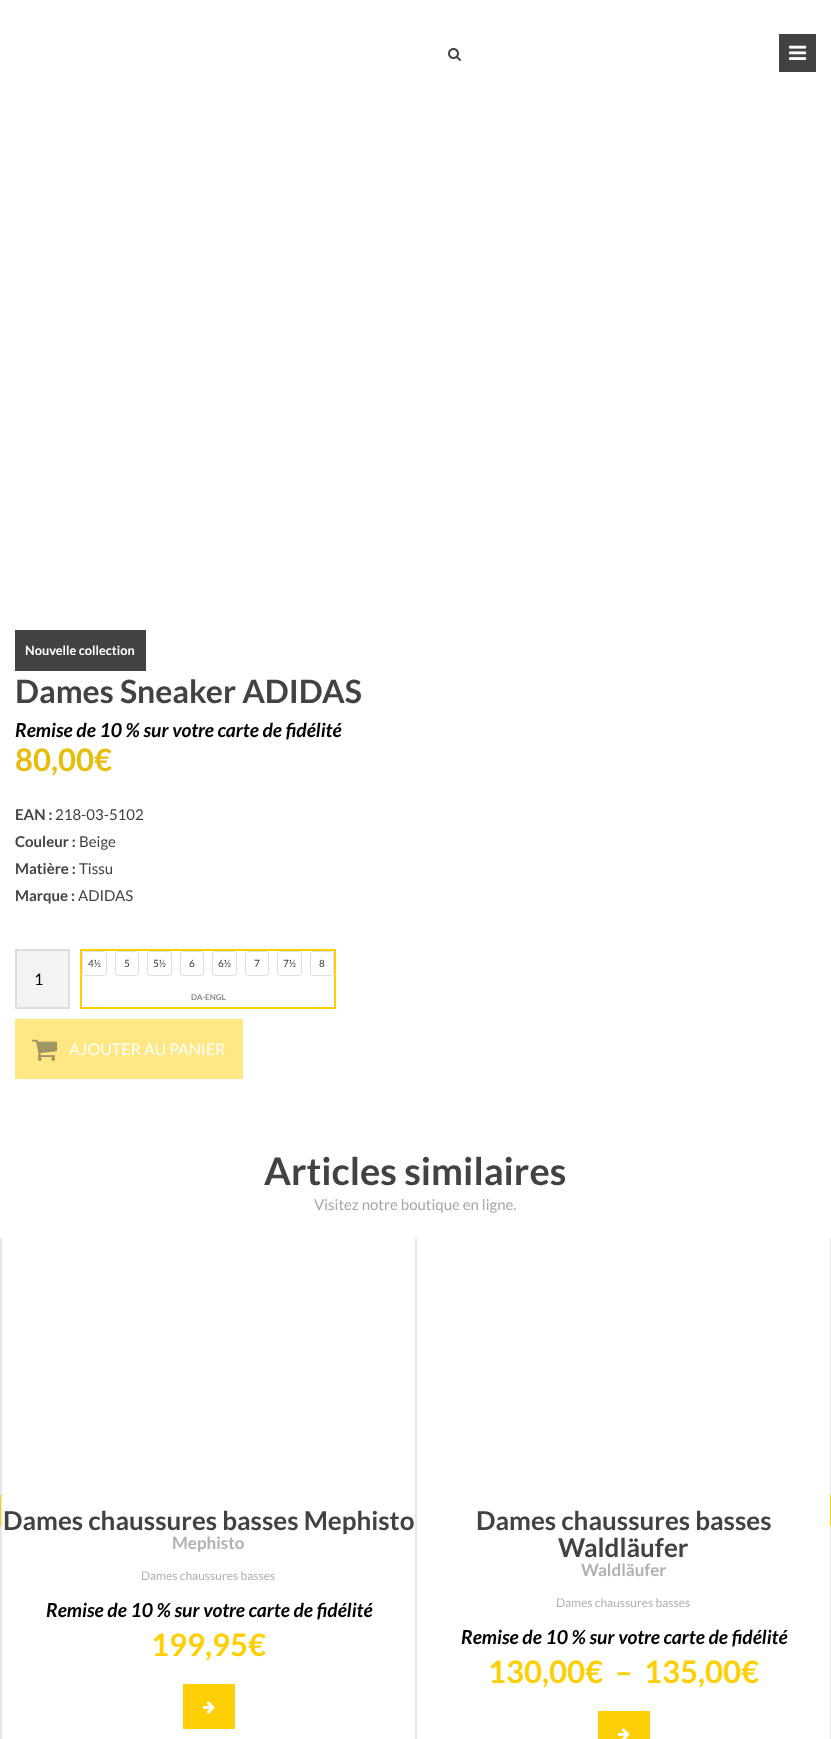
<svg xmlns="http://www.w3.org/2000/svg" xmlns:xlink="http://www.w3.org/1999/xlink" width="831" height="1739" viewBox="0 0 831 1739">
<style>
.cls-1{font:bold 12.75px Lato;fill:#ffffff}
.cls-2{font:bold 32px Lato;fill:#424242}
.cls-3{font:italic bold 19.25px Lato;fill:#000000}
.cls-4{font:bold 31px Lato;fill:#e7bd0c}
.cls-5{font:bold 15px Lato;fill:#424242}
.cls-6{font:15px Lato;fill:#424242}
.cls-7{font:10px Lato;fill:#424242}
.cls-8{font:bold 8px Lato;fill:#8a8a8a}
.cls-9{font:16px Lato;fill:#000000}
.cls-10{font:16px Lato;fill:#ffffff}
.cls-11{font:bold 38px Lato;fill:#424242}
.cls-12{font:15px Lato;fill:#a6a6a6}
.cls-13{font:bold 26px Lato;fill:#424242}
.cls-14{font:bold 17px Lato;fill:#b1b1b1}
.cls-15{font:12px Lato;fill:#b1b1b1}
.cls-16{font:bold 31px Lato;fill:#ffcf06}
</style>
<defs>
<clipPath id="clip1"><rect x="1" y="1238" width="829" height="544"/></clipPath>
<clipPath id="clip2"><rect x="2" y="1507" width="413" height="27"/></clipPath>
</defs>
<rect width="100%" height="100%" fill="#ffffff"/>
<image xlink:href="image0.png" x="448" y="48" width="13" height="13"/>
<rect fill="#424242" x="779" y="34" width="37" height="38"/>
<image xlink:href="image1.png" x="789" y="45" width="18" height="15"/>
<rect fill="#424242" x="15" y="630" width="131" height="41"/>
<rect fill="none" stroke="#ffcf06" stroke-width="2" x="81" y="950" width="254" height="58"/>
<rect fill="none" stroke="#dfdfdf" x="82.5" y="951.5" width="24" height="24" rx="2.5"/>
<rect fill="none" stroke="#dfdfdf" x="115.5" y="951.5" width="23" height="24" rx="2.5"/>
<rect fill="none" stroke="#dfdfdf" x="147.5" y="951.5" width="24" height="24" rx="2.5"/>
<rect fill="none" stroke="#dfdfdf" x="180.5" y="951.5" width="23" height="24" rx="2.5"/>
<rect fill="none" stroke="#dfdfdf" x="212.5" y="951.5" width="24" height="24" rx="2.5"/>
<rect fill="none" stroke="#dfdfdf" x="245.5" y="951.5" width="23" height="24" rx="2.5"/>
<rect fill="none" stroke="#dfdfdf" x="277.5" y="951.5" width="24" height="24" rx="2.5"/>
<rect fill="none" stroke="#dfdfdf" x="310.5" y="951.5" width="23" height="24" rx="2.5"/>
<rect fill="#f3f3f3" stroke="#dedede" stroke-width="2" x="16" y="950" width="53" height="58"/>
<rect fill="#ffe783" x="15" y="1019" width="228" height="60"/>
<image xlink:href="image2.png" x="32" y="1039" width="26" height="22"/>
<rect fill="#e7e7e7" x="830" y="1238" width="1" height="501"/>
<rect fill="#e7e7e7" x="0" y="1238" width="1" height="501"/>
<rect fill="#ffcf06" x="0" y="1495" width="1" height="31"/>
<g clip-path="url(#clip1)">
<rect fill="none" stroke="#e7e7e7" x="1.5" y="1237.5" width="414" height="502"/>
</g>
<rect fill="#ffcf06" x="183" y="1684" width="52" height="45"/>
<image xlink:href="image3.png" x="203" y="1701" width="12" height="13"/>
<g clip-path="url(#clip1)">
<rect fill="none" stroke="#e7e7e7" x="416.5" y="1237.5" width="414" height="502"/>
</g>
<rect fill="#ffcf06" x="598" y="1711" width="52" height="28"/>
<image xlink:href="image4.png" x="618" y="1728" width="12" height="11"/>
<rect fill="#ffcf06" x="830" y="1495" width="1" height="31"/>
<text class="cls-1" x="25" y="655">Nouvelle collection</text>
<text class="cls-2" x="15" y="703">Dames Sneaker ADIDAS</text>
<text class="cls-3" x="15" y="737">Remise de 10 % sur votre carte de fidélité</text>
<text class="cls-4" x="15" y="771">80,00€</text>
<text class="cls-5" x="15" y="820">EAN :</text>
<text class="cls-6" x="55" y="820">218-03-5102</text>
<text class="cls-5" x="15" y="847">Couleur :</text>
<text class="cls-6" x="79" y="847">Beige</text>
<text class="cls-5" x="15" y="874">Matière :</text>
<text class="cls-6" x="79" y="874">Tissu</text>
<text class="cls-5" x="15" y="901">Marque :</text>
<text class="cls-6" x="78" y="901">ADIDAS</text>
<text class="cls-7" x="88" y="967">4½</text>
<text class="cls-7" x="124" y="967">5</text>
<text class="cls-7" x="153" y="967">5½</text>
<text class="cls-7" x="189" y="967">6</text>
<text class="cls-7" x="218" y="967">6½</text>
<text class="cls-7" x="254" y="967">7</text>
<text class="cls-7" x="283" y="967">7½</text>
<text class="cls-7" x="319" y="967">8</text>
<text class="cls-8" x="191" y="1000">DA-ENGL</text>
<text class="cls-9" x="34" y="985">1</text>
<text class="cls-10" x="69" y="1055">AJOUTER AU PANIER</text>
<text class="cls-11" x="264" y="1185">Articles similaires</text>
<text class="cls-12" x="314" y="1210">Visitez notre boutique en ligne.</text>
<g clip-path="url(#clip2)">
<text class="cls-13" x="3" y="1530">Dames chaussures basses Mephisto</text>
</g>
<text class="cls-14" x="172" y="1549">Mephisto</text>
<text class="cls-15" x="141" y="1580">Dames chaussures basses</text>
<text class="cls-3" x="46" y="1617">Remise de 10 % sur votre carte de fidélité</text>
<text class="cls-16" x="151" y="1656">199,95€</text>
<text class="cls-13" x="476" y="1530">Dames chaussures basses</text>
<text class="cls-13" x="558" y="1557">Waldläufer</text>
<text class="cls-14" x="581" y="1576">Waldläufer</text>
<text class="cls-15" x="556" y="1607">Dames chaussures basses</text>
<text class="cls-3" x="461" y="1644">Remise de 10 % sur votre carte de fidélité</text>
<text class="cls-16" x="488" y="1683">130,00€</text>
<text class="cls-16" x="615" y="1683">–</text>
<text class="cls-16" x="644" y="1683">135,00€</text>
</svg>
